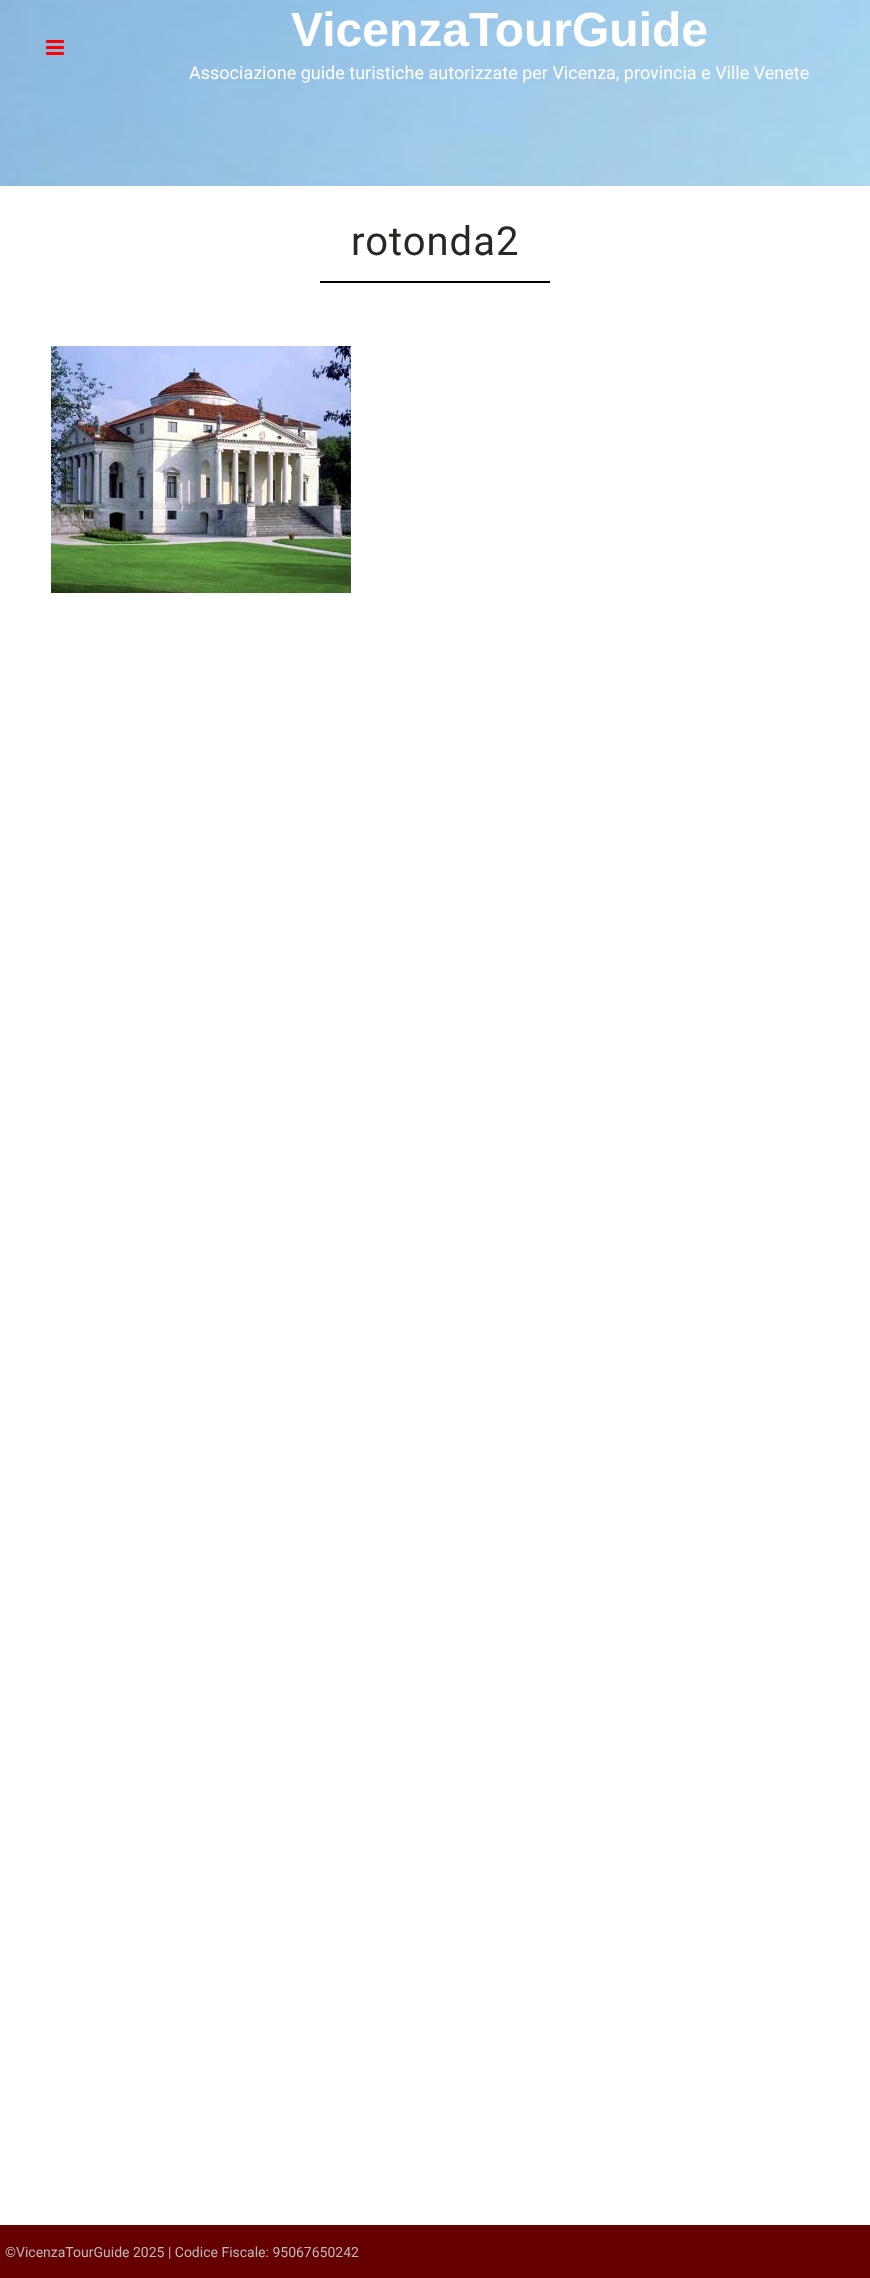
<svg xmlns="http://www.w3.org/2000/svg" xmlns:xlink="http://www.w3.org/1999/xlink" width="870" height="2278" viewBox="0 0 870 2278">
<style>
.cls-1{font:bold 48px Liberation Sans;fill:#ffffff}
.cls-2{font:18px Roboto;fill:#ffffff}
.cls-3{font:40px Roboto;letter-spacing:1px;fill:#2a2622}
.cls-4{font:14px Roboto;fill:#b9b9b9}
</style>
<rect width="100%" height="100%" fill="#ffffff"/>
<image xlink:href="image0.png" x="0" y="0" width="870" height="186"/>
<image xlink:href="image1.png" x="46" y="40" width="18" height="15"/>
<rect fill="#000000" x="320" y="281" width="230" height="2"/>
<image xlink:href="image2.png" x="51" y="346" width="300" height="247"/>
<rect fill="#660000" x="0" y="2225" width="870" height="53"/>
<text class="cls-1" x="291" y="46">VicenzaTourGuide</text>
<text class="cls-2" x="189" y="79">Associazione guide turistiche autorizzate per Vicenza, provincia e Ville Venete</text>
<text class="cls-3" x="351" y="255">rotonda2</text>
<text class="cls-4" x="5" y="2257">©VicenzaTourGuide 2025 | Codice Fiscale: 95067650242</text>
</svg>
